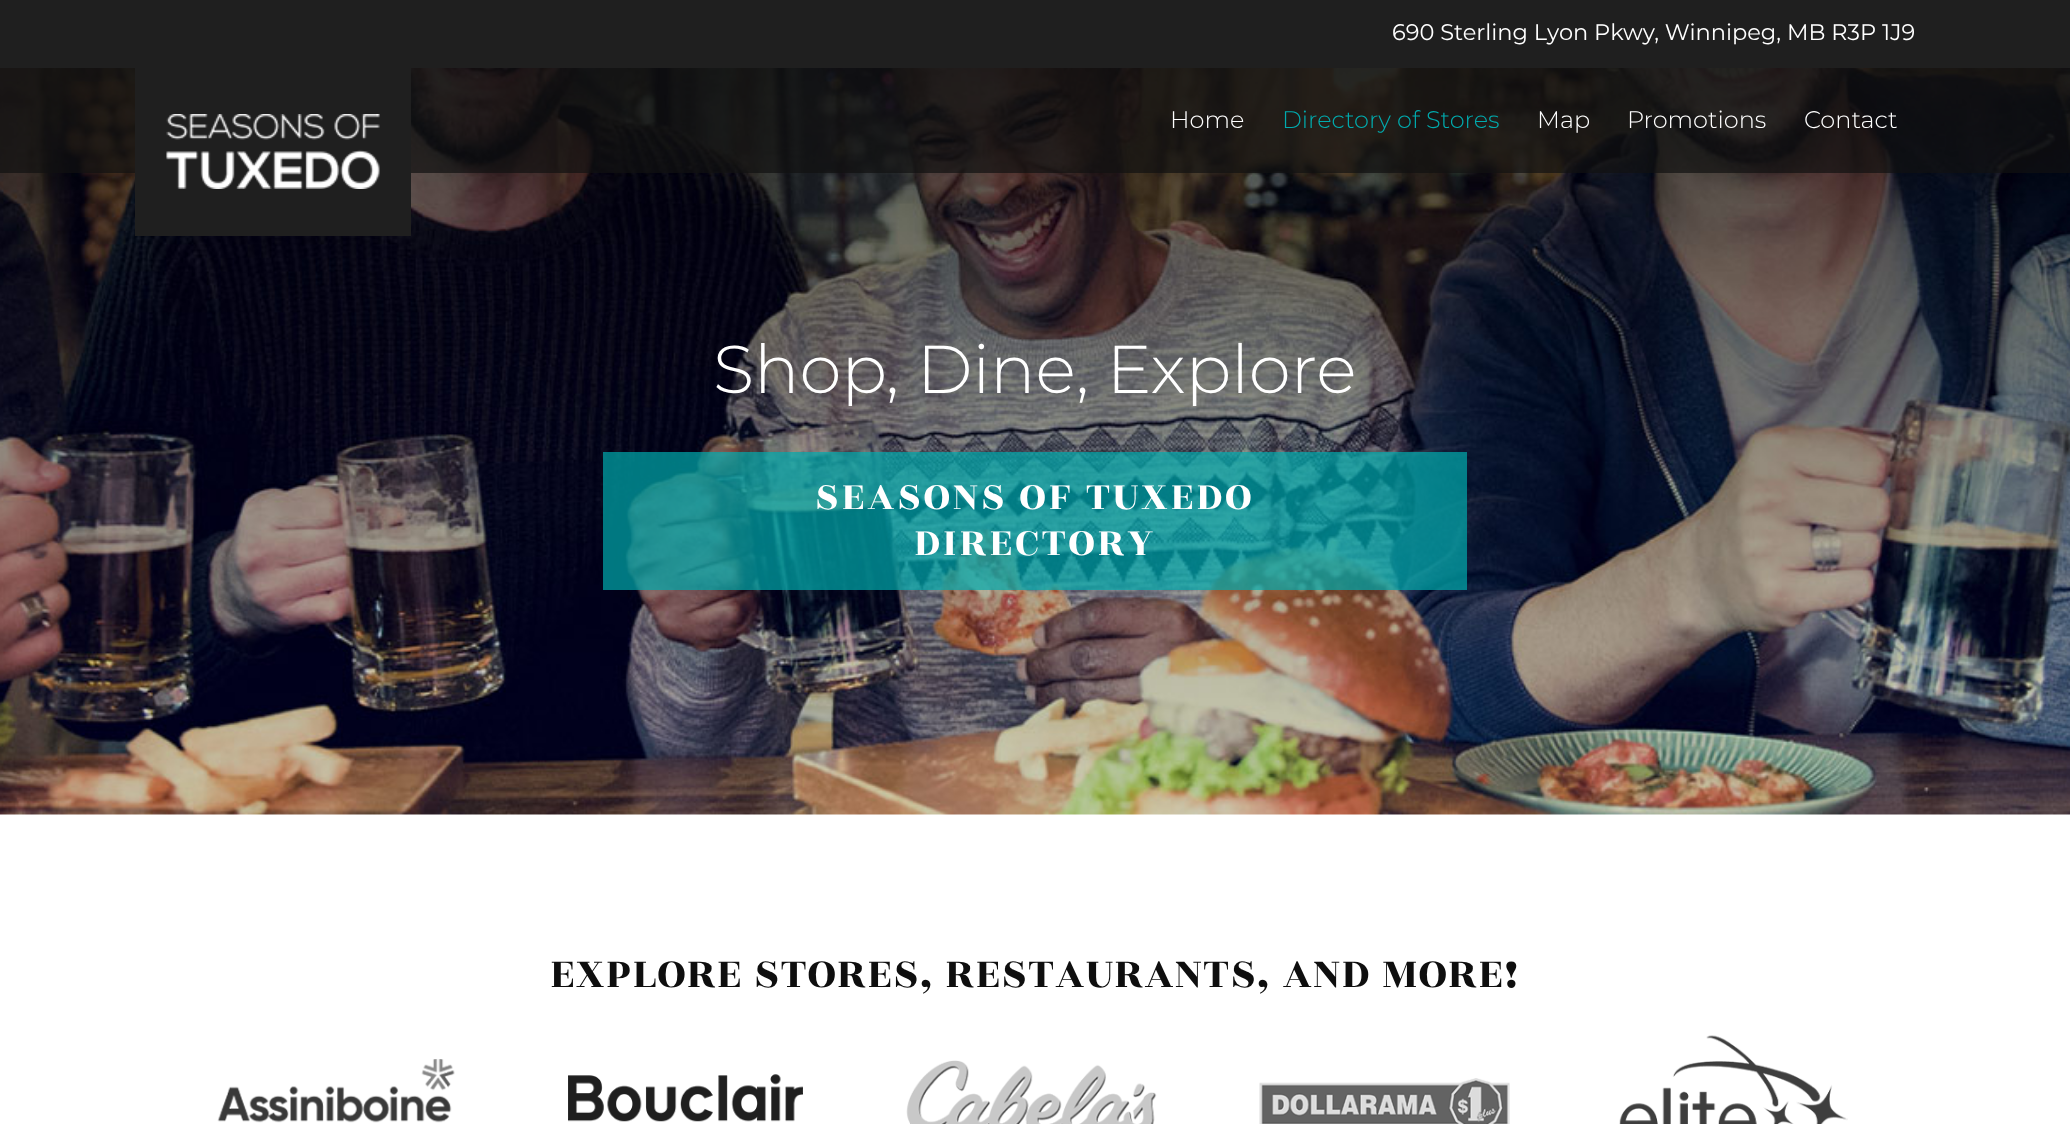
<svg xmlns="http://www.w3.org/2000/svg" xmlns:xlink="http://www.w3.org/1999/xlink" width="2070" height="1124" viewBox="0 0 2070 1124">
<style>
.cls-1{font:22.5px Montserrat;fill:#ffffff}
.cls-2{font:300 24px Montserrat;fill:#ffffff}
.cls-3{font:300 24px Montserrat;fill:#00abae}
.cls-4{font:300 67.5px Montserrat;fill:#ffffff}
.cls-5{font:42px Rozha One;letter-spacing:3px;fill:#ffffff}
.cls-6{font:45px Rozha One;letter-spacing:1.5px;fill:#0e0e0e}
</style>
<rect width="100%" height="100%" fill="#ffffff"/>
<rect fill="#1f1f1f" x="0" y="0" width="2070" height="68"/>
<image xlink:href="image1.png" x="0" y="68" width="2070" height="747"/>
<rect fill="#111111" fill-opacity="0.7" x="0" y="68" width="2070" height="105"/>
<rect fill="#1f1f1f" x="135" y="68" width="276" height="168"/>
<image xlink:href="image0.png" x="166" y="114" width="214" height="75"/>
<rect fill="#00abae" fill-opacity="0.7" x="603" y="452" width="864" height="138"/>
<image xlink:href="image2.png" x="217" y="1059" width="238" height="64"/>
<image xlink:href="image3.png" x="568" y="1074" width="235" height="48"/>
<image xlink:href="image4.png" x="906" y="1060" width="251" height="64"/>
<image xlink:href="image5.png" x="1259" y="1078" width="251" height="46"/>
<image xlink:href="image6.png" x="1619" y="1035" width="229" height="89"/>
<text class="cls-1" x="1392" y="40">690 Sterling Lyon Pkwy, Winnipeg, MB R3P 1J9</text>
<text class="cls-2" x="1170" y="128">Home</text>
<text class="cls-3" x="1282" y="128">Directory of Stores</text>
<text class="cls-2" x="1537" y="128">Map</text>
<text class="cls-2" x="1627" y="128">Promotions</text>
<text class="cls-2" x="1804" y="128">Contact</text>
<text class="cls-4" x="713" y="393">Shop, Dine, Explore</text>
<text class="cls-5" x="815" y="509">SEASONS OF TUXEDO</text>
<text class="cls-5" x="914" y="555">DIRECTORY</text>
<text class="cls-6" x="550" y="987">EXPLORE STORES, RESTAURANTS, AND MORE!</text>
</svg>
